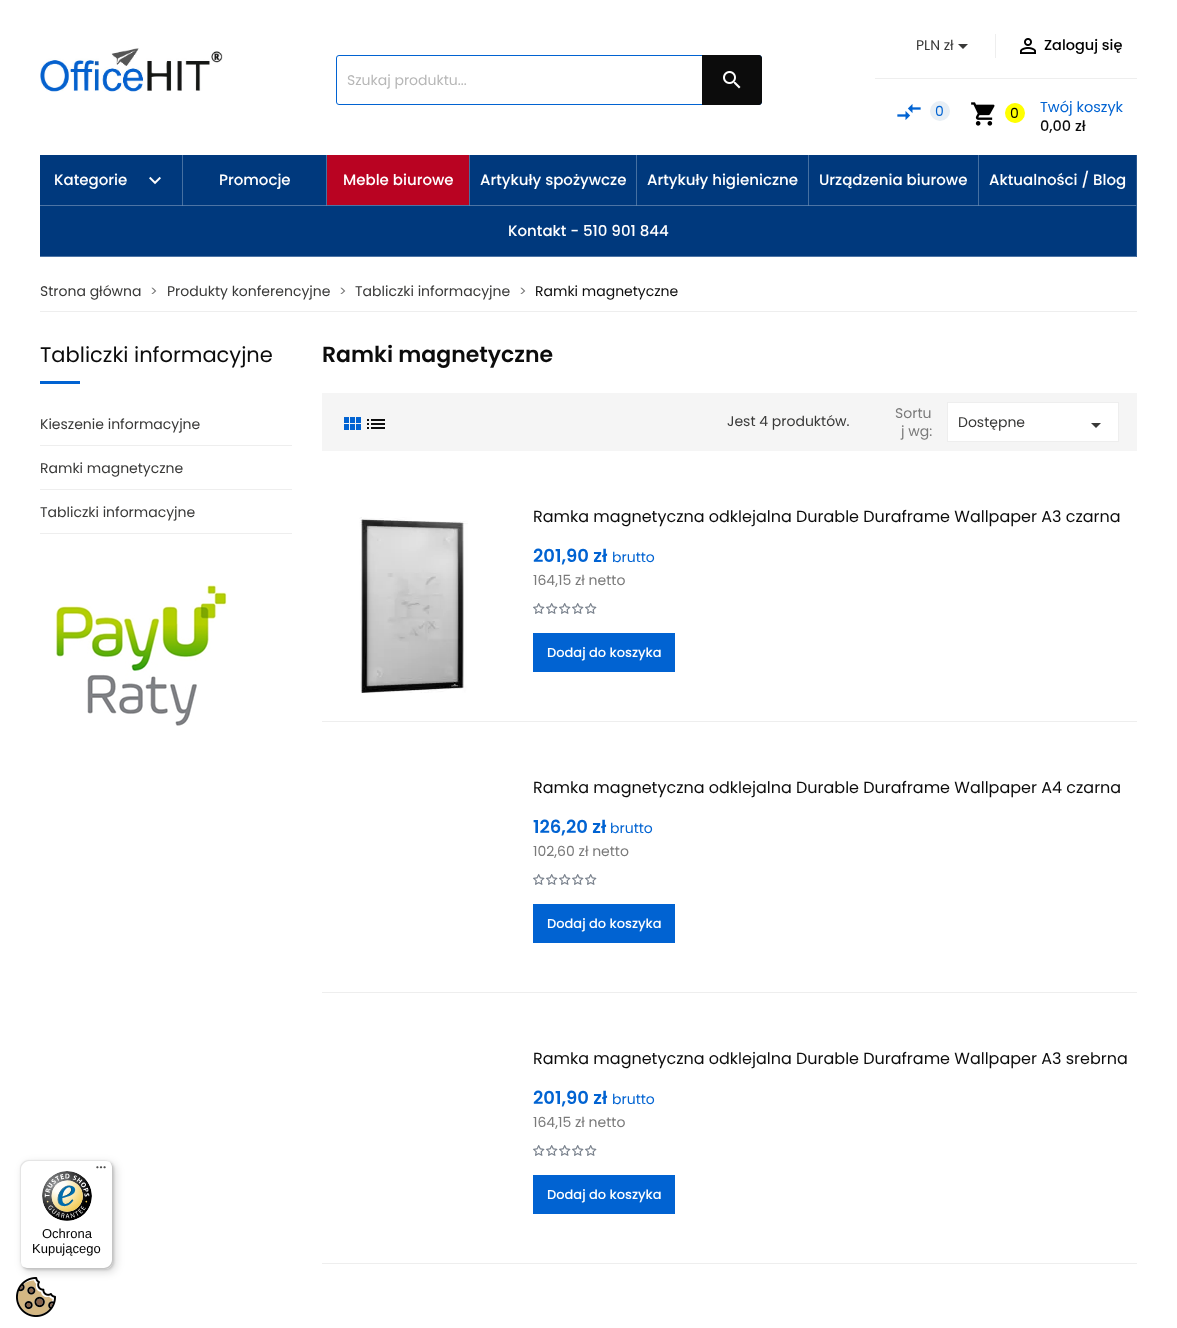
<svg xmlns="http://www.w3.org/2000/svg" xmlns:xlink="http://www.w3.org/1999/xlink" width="1177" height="1328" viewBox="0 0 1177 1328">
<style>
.cls-1{font:14px Poppins;fill:#b7b7b7}
.cls-2{font:14px Poppins;fill:#393938}
.cls-3{font:500 14.5px Poppins;fill:#000000}
.cls-4{font:14px Poppins;fill:#0163d2}
.cls-5{font:14px Poppins;fill:#000000}
.cls-6{font:14.5px Poppins;fill:#0163d2}
.cls-7{font:500 14.5px Poppins;fill:#0c0c0c}
.cls-8{font:500 15px Poppins;fill:#ffffff}
.cls-9{font:14px Poppins;fill:#7a7a7a}
.cls-10{font:14px Poppins;fill:#0c0c0c}
.cls-11{font:21px Poppins;fill:#0c0c0c}
.cls-12{font:600 22px Poppins;fill:#0c0c0c}
.cls-13{font:16px Poppins;fill:#0c0c0c}
.cls-14{font:600 18px Poppins;fill:#0163d2}
.cls-15{font:500 13px Poppins;fill:#ffffff}
.cls-16{font:13px Liberation Sans;fill:#000000}
</style>
<rect width="100%" height="100%" fill="#ffffff"/>
<image xlink:href="image0.png" x="40" y="48" width="183" height="44"/>
<rect fill="none" stroke="#0163d2" x="336.5" y="55.5" width="425" height="49" rx="2.5"/>
<path fill="#0c0c0c" d="M702 55H759C760.5 55 762 56.5 762 58V102C762 103.5 760.5 105 759 105H702Z"/>
<image xlink:href="image1.png" x="723" y="71" width="18" height="18"/>
<path fill="#393938" d="M958 44H968L963 49Z"/>
<rect fill="#eeeeee" x="995" y="34" width="1" height="24"/>
<image xlink:href="image2.png" x="1020" y="38" width="16" height="16"/>
<rect fill="#eeeeee" x="875" y="78" width="262" height="1"/>
<image xlink:href="image3.png" x="897" y="104" width="24" height="16"/>
<circle fill="#e8eff5" cx="940" cy="111" r="10"/>
<image xlink:href="image4.png" x="971" y="102" width="24" height="24"/>
<circle fill="#ffff00" cx="1015" cy="113" r="10"/>
<rect fill="#00397d" x="40" y="155" width="1097" height="102"/>
<path fill="#265791" d="M183 155V206L182 205V155Z"/>
<path fill="#ffffff" fill-opacity="0.3" d="M183 206H39L40 205H182Z"/>
<image xlink:href="image5.png" x="149" y="176" width="12" height="9"/>
<path fill="#265791" d="M327 155V206L326 205V155Z"/>
<path fill="#ffffff" fill-opacity="0.3" d="M327 206H182L183 205H326Z"/>
<path fill="#ffffff" fill-opacity="0.15" d="M182 206V155H183V205Z"/>
<path fill="#265791" d="M470 155V206L469 205V155Z"/>
<path fill="#ffffff" fill-opacity="0.3" d="M470 206H326L327 205H469Z"/>
<path fill="#ffffff" fill-opacity="0.15" d="M326 206V155H327V205Z"/>
<rect fill="#b90322" x="327" y="155" width="142" height="50"/>
<path fill="#265791" d="M637 155V206L636 205V155Z"/>
<path fill="#ffffff" fill-opacity="0.3" d="M637 206H469L470 205H636Z"/>
<path fill="#ffffff" fill-opacity="0.15" d="M469 206V155H470V205Z"/>
<path fill="#265791" d="M809 155V206L808 205V155Z"/>
<path fill="#ffffff" fill-opacity="0.3" d="M809 206H636L637 205H808Z"/>
<path fill="#ffffff" fill-opacity="0.15" d="M636 206V155H637V205Z"/>
<path fill="#265791" d="M979 155V206L978 205V155Z"/>
<path fill="#ffffff" fill-opacity="0.3" d="M979 206H808L809 205H978Z"/>
<path fill="#ffffff" fill-opacity="0.15" d="M808 206V155H809V205Z"/>
<path fill="#265791" d="M1137 155V206L1136 205V155Z"/>
<path fill="#ffffff" fill-opacity="0.3" d="M1137 206H978L979 205H1136Z"/>
<path fill="#ffffff" fill-opacity="0.15" d="M978 206V155H979V205Z"/>
<path fill="#265791" d="M1137 206V257L1136 256V206Z"/>
<path fill="#ffffff" fill-opacity="0.3" d="M1137 257H39L40 256H1136Z"/>
<rect fill="#eeeeee" x="40" y="311" width="1097" height="1"/>
<rect fill="#0163d2" x="40" y="381" width="40" height="3"/>
<rect fill="#eeeeee" x="40" y="445" width="252" height="1"/>
<rect fill="#eeeeee" x="40" y="489" width="252" height="1"/>
<rect fill="#eeeeee" x="40" y="533" width="252" height="1"/>
<image xlink:href="image6.png" x="55" y="585" width="172" height="141"/>
<rect fill="#f5f5f5" x="322" y="393" width="815" height="58"/>
<image xlink:href="image7.png" x="344" y="417" width="17" height="13"/>
<image xlink:href="image8.png" x="367" y="419" width="18" height="10"/>
<rect fill="#ffffff" stroke="#eeeeee" x="947.5" y="402.5" width="171" height="39"/>
<path fill="#393938" d="M1091 423H1101L1096 428Z"/>
<rect fill="#eeeeee" x="322" y="721" width="815" height="1"/>
<image xlink:href="image9.png" x="359" y="517" width="109" height="176"/>
<image xlink:href="image10.png" x="533" y="603" width="12" height="11"/>
<image xlink:href="image10.png" x="546" y="603" width="12" height="11"/>
<image xlink:href="image10.png" x="559" y="603" width="12" height="11"/>
<image xlink:href="image10.png" x="572" y="603" width="12" height="11"/>
<image xlink:href="image10.png" x="585" y="603" width="12" height="11"/>
<rect fill="#0163d2" x="533" y="633" width="142" height="39"/>
<rect fill="#eeeeee" x="322" y="992" width="815" height="1"/>
<image xlink:href="image10.png" x="533" y="874" width="12" height="11"/>
<image xlink:href="image10.png" x="546" y="874" width="12" height="11"/>
<image xlink:href="image10.png" x="559" y="874" width="12" height="11"/>
<image xlink:href="image10.png" x="572" y="874" width="12" height="11"/>
<image xlink:href="image10.png" x="585" y="874" width="12" height="11"/>
<rect fill="#0163d2" x="533" y="904" width="142" height="39"/>
<rect fill="#eeeeee" x="322" y="1263" width="815" height="1"/>
<image xlink:href="image10.png" x="533" y="1145" width="12" height="11"/>
<image xlink:href="image10.png" x="546" y="1145" width="12" height="11"/>
<image xlink:href="image10.png" x="559" y="1145" width="12" height="11"/>
<image xlink:href="image10.png" x="572" y="1145" width="12" height="11"/>
<image xlink:href="image10.png" x="585" y="1145" width="12" height="11"/>
<rect fill="#0163d2" x="533" y="1175" width="142" height="39"/>
<image xlink:href="image13.png" x="16" y="1277" width="40" height="40"/>
<rect fill="#000000" fill-opacity="0.15" filter="blur(4px)" x="23" y="1163" width="93" height="109" rx="8"/>
<rect fill="#000000" fill-opacity="0.15" filter="blur(1px)" x="21" y="1161" width="93" height="109" rx="8"/>
<rect fill="#ffffff" x="20" y="1160" width="93" height="109" rx="8"/>
<path fill="#e5e5e5" d="M29 1161H106C108 1161 110 1162 112 1164C110 1162 108 1160 105 1160H28C24 1160 20 1164 20 1168V1261C20 1264 22 1266 24 1268C22 1266 21 1264 21 1262V1169C21 1165 25 1161 29 1161Z"/>
<path fill="#cccccc" d="M21 1265C23 1267 25 1269 28 1269H105C109 1269 113 1265 113 1261V1168C113 1165 111 1163 109 1161C111 1163 112 1165 112 1167V1260C112 1264 108 1268 104 1268H27C25 1268 23 1267 21 1265Z"/>
<path fill="#323232" fill-opacity="0.2" d="M22 1266C23 1268 26 1269 28 1269H105C109 1269 113 1265 113 1261V1168C113 1166 112 1163 110 1162C111 1163 112 1165 112 1167V1260C112 1265 109 1268 104 1268H27C25 1268 23 1267 22 1266Z"/>
<path fill="#ffffff" fill-opacity="0.3" d="M112 1168C112 1163 109 1160 104 1160H105C109 1160 113 1164 113 1168V1261C113 1265 109 1269 105 1269H28C24 1269 20 1265 20 1261V1260C20 1265 23 1268 28 1268H104C109 1268 112 1265 112 1260Z"/>
<image xlink:href="image11.png" x="96" y="1166" width="10" height="3"/>
<image xlink:href="image12.png" x="42" y="1171" width="50" height="50"/>
<text class="cls-1" x="347" y="85">Szukaj produktu...</text>
<text class="cls-2" x="916" y="50">PLN zł</text>
<text class="cls-3" x="1044" y="50">Zaloguj się</text>
<text class="cls-4" x="935" y="116">0</text>
<text class="cls-5" x="1010" y="118">0</text>
<text class="cls-6" x="1040" y="112">Twój koszyk</text>
<text class="cls-7" x="1040" y="131">0,00 zł</text>
<text class="cls-8" x="54" y="185">Kategorie</text>
<text class="cls-8" x="219" y="185">Promocje</text>
<text class="cls-8" x="343" y="185">Meble biurowe</text>
<text class="cls-8" x="480" y="185">Artykuły spożywcze</text>
<text class="cls-8" x="647" y="185">Artykuły higieniczne</text>
<text class="cls-8" x="819" y="185">Urządzenia biurowe</text>
<text class="cls-8" x="989" y="185">Aktualności / Blog</text>
<text class="cls-8" x="508" y="236">Kontakt - 510 901 844</text>
<text class="cls-2" x="40" y="296">Strona główna</text>
<text class="cls-9" x="150" y="296">&gt;</text>
<text class="cls-2" x="167" y="296">Produkty konferencyjne</text>
<text class="cls-9" x="339" y="296">&gt;</text>
<text class="cls-2" x="355" y="296">Tabliczki informacyjne</text>
<text class="cls-9" x="519" y="296">&gt;</text>
<text class="cls-10" x="535" y="296">Ramki magnetyczne</text>
<text class="cls-11" x="40" y="362">Tabliczki informacyjne</text>
<text class="cls-2" x="40" y="429">Kieszenie informacyjne</text>
<text class="cls-2" x="40" y="473">Ramki magnetyczne</text>
<text class="cls-2" x="40" y="517">Tabliczki informacyjne</text>
<text class="cls-12" x="322" y="362">Ramki magnetyczne</text>
<text class="cls-2" x="727" y="426">Jest 4 produktów.</text>
<text class="cls-9" x="895" y="418">Sortu</text>
<text class="cls-9" x="901" y="436">j wg:</text>
<text class="cls-2" x="958" y="427">Dostępne</text>
<text class="cls-13" x="533" y="522">Ramka magnetyczna odklejalna Durable Duraframe Wallpaper A3 czarna</text>
<text class="cls-14" x="533" y="562">201,90 zł</text>
<text class="cls-4" x="612" y="562">brutto</text>
<text class="cls-9" x="533" y="585">164,15 zł netto</text>
<text class="cls-15" x="547" y="657">Dodaj do koszyka</text>
<text class="cls-13" x="533" y="793">Ramka magnetyczna odklejalna Durable Duraframe Wallpaper A4 czarna</text>
<text class="cls-14" x="533" y="833">126,20 zł</text>
<text class="cls-4" x="610" y="833">brutto</text>
<text class="cls-9" x="533" y="856">102,60 zł netto</text>
<text class="cls-15" x="547" y="928">Dodaj do koszyka</text>
<text class="cls-13" x="533" y="1064">Ramka magnetyczna odklejalna Durable Duraframe Wallpaper A3 srebrna</text>
<text class="cls-14" x="533" y="1104">201,90 zł</text>
<text class="cls-4" x="612" y="1104">brutto</text>
<text class="cls-9" x="533" y="1127">164,15 zł netto</text>
<text class="cls-15" x="547" y="1199">Dodaj do koszyka</text>
<text class="cls-16" x="42" y="1238">Ochrona</text>
<text class="cls-16" x="32" y="1253">Kupującego</text>
</svg>
